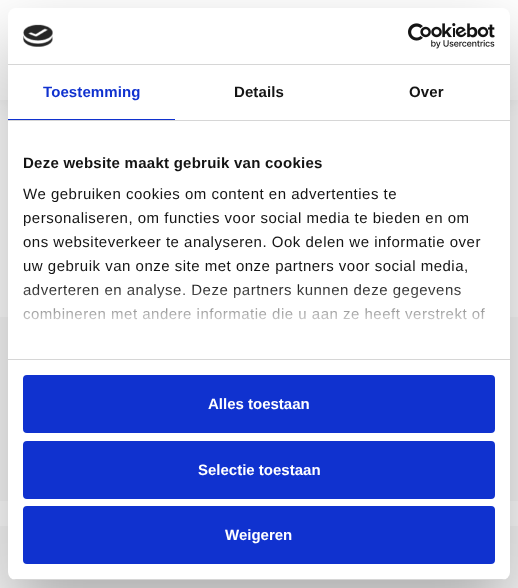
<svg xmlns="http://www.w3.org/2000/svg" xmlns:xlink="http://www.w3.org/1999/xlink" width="518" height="588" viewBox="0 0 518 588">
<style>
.cls-1{font:bold 15px Liberation Sans;letter-spacing:0.1px;fill:#1032cf}
.cls-2{font:bold 15px Liberation Sans;letter-spacing:0.1px;fill:#141414}
.cls-3{font:bold 15px Liberation Sans;letter-spacing:0.25px;fill:#141414}
.cls-4{font:15px Liberation Sans;letter-spacing:0.5px;fill:#141414}
.cls-5{font:bold 15px Liberation Sans;fill:#ffffff}
</style>
<defs>
<clipPath id="clip1"><rect x="8" y="8" width="502" height="572" rx="8"/></clipPath>
<linearGradient id="g1" gradientUnits="userSpaceOnUse" x1="253" y1="359" x2="253" y2="284"><stop offset="0" stop-color="#ffffff"/><stop offset="0.5" stop-color="#ffffff" stop-opacity="0.8"/><stop offset="1" stop-color="#ffffff" stop-opacity="0"/></linearGradient>
</defs>
<rect width="100%" height="100%" fill="#ffffff"/>
<rect fill="#000000" fill-opacity="0.09" filter="blur(9px)" x="0" y="0" width="518" height="100"/>
<rect fill="#ffffff" x="0" y="0" width="518" height="100"/>
<rect fill="#f8f8f8" x="0" y="317" width="518" height="184"/>
<rect fill="#f8f8f8" x="0" y="526" width="518" height="62"/>
<rect fill="#000000" fill-opacity="0.3" filter="blur(34px)" x="8" y="40" width="502" height="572" rx="8"/>
<rect fill="#ffffff" x="8" y="8" width="502" height="572" rx="8"/>
<rect fill="#d6d6d6" x="8" y="64" width="502" height="1"/>
<image xlink:href="image0.png" x="23" y="24" width="30" height="23"/>
<image xlink:href="image1.png" x="408" y="23" width="87" height="26"/>
<rect fill="#d6d6d6" x="8" y="120" width="502" height="1"/>
<rect fill="#1032cf" x="8" y="119" width="167" height="1"/>
<rect fill="#d6d6d6" x="8" y="359" width="502" height="1"/>
<g clip-path="url(#clip1)">
<rect fill="#d6d6d6" x="8" y="579" width="502" height="1"/>
</g>
<rect fill="#1032cf" stroke="#1032cf" stroke-width="2" x="24" y="376" width="470" height="56" rx="3"/>
<rect fill="#1032cf" stroke="#1032cf" stroke-width="2" x="24" y="442" width="470" height="56" rx="3"/>
<rect fill="#1032cf" stroke="#1032cf" stroke-width="2" x="24" y="507" width="470" height="56" rx="3"/>
<text class="cls-1" x="43" y="97">Toestemming</text>
<text class="cls-2" x="234" y="97">Details</text>
<text class="cls-2" x="409" y="97">Over</text>
<text class="cls-3" x="23" y="168">Deze website maakt gebruik van cookies</text>
<text class="cls-4"><tspan x="23" y="199">We gebruiken cookies om content en advertenties te</tspan><tspan x="23" y="223">personaliseren, om functies voor social media te bieden en om</tspan><tspan x="23" y="247">ons websiteverkeer te analyseren. Ook delen we informatie over</tspan><tspan x="23" y="271">uw gebruik van onze site met onze partners voor social media,</tspan><tspan x="23" y="295">adverteren en analyse. Deze partners kunnen deze gegevens</tspan><tspan x="23" y="319">combineren met andere informatie die u aan ze heeft verstrekt of</tspan></text>
<rect fill="url(#g1)" x="23" y="285" width="462" height="35"/>
<text class="cls-5" x="208" y="409">Alles toestaan</text>
<text class="cls-5" x="198" y="475">Selectie toestaan</text>
<text class="cls-5" x="225" y="540">Weigeren</text>
</svg>
